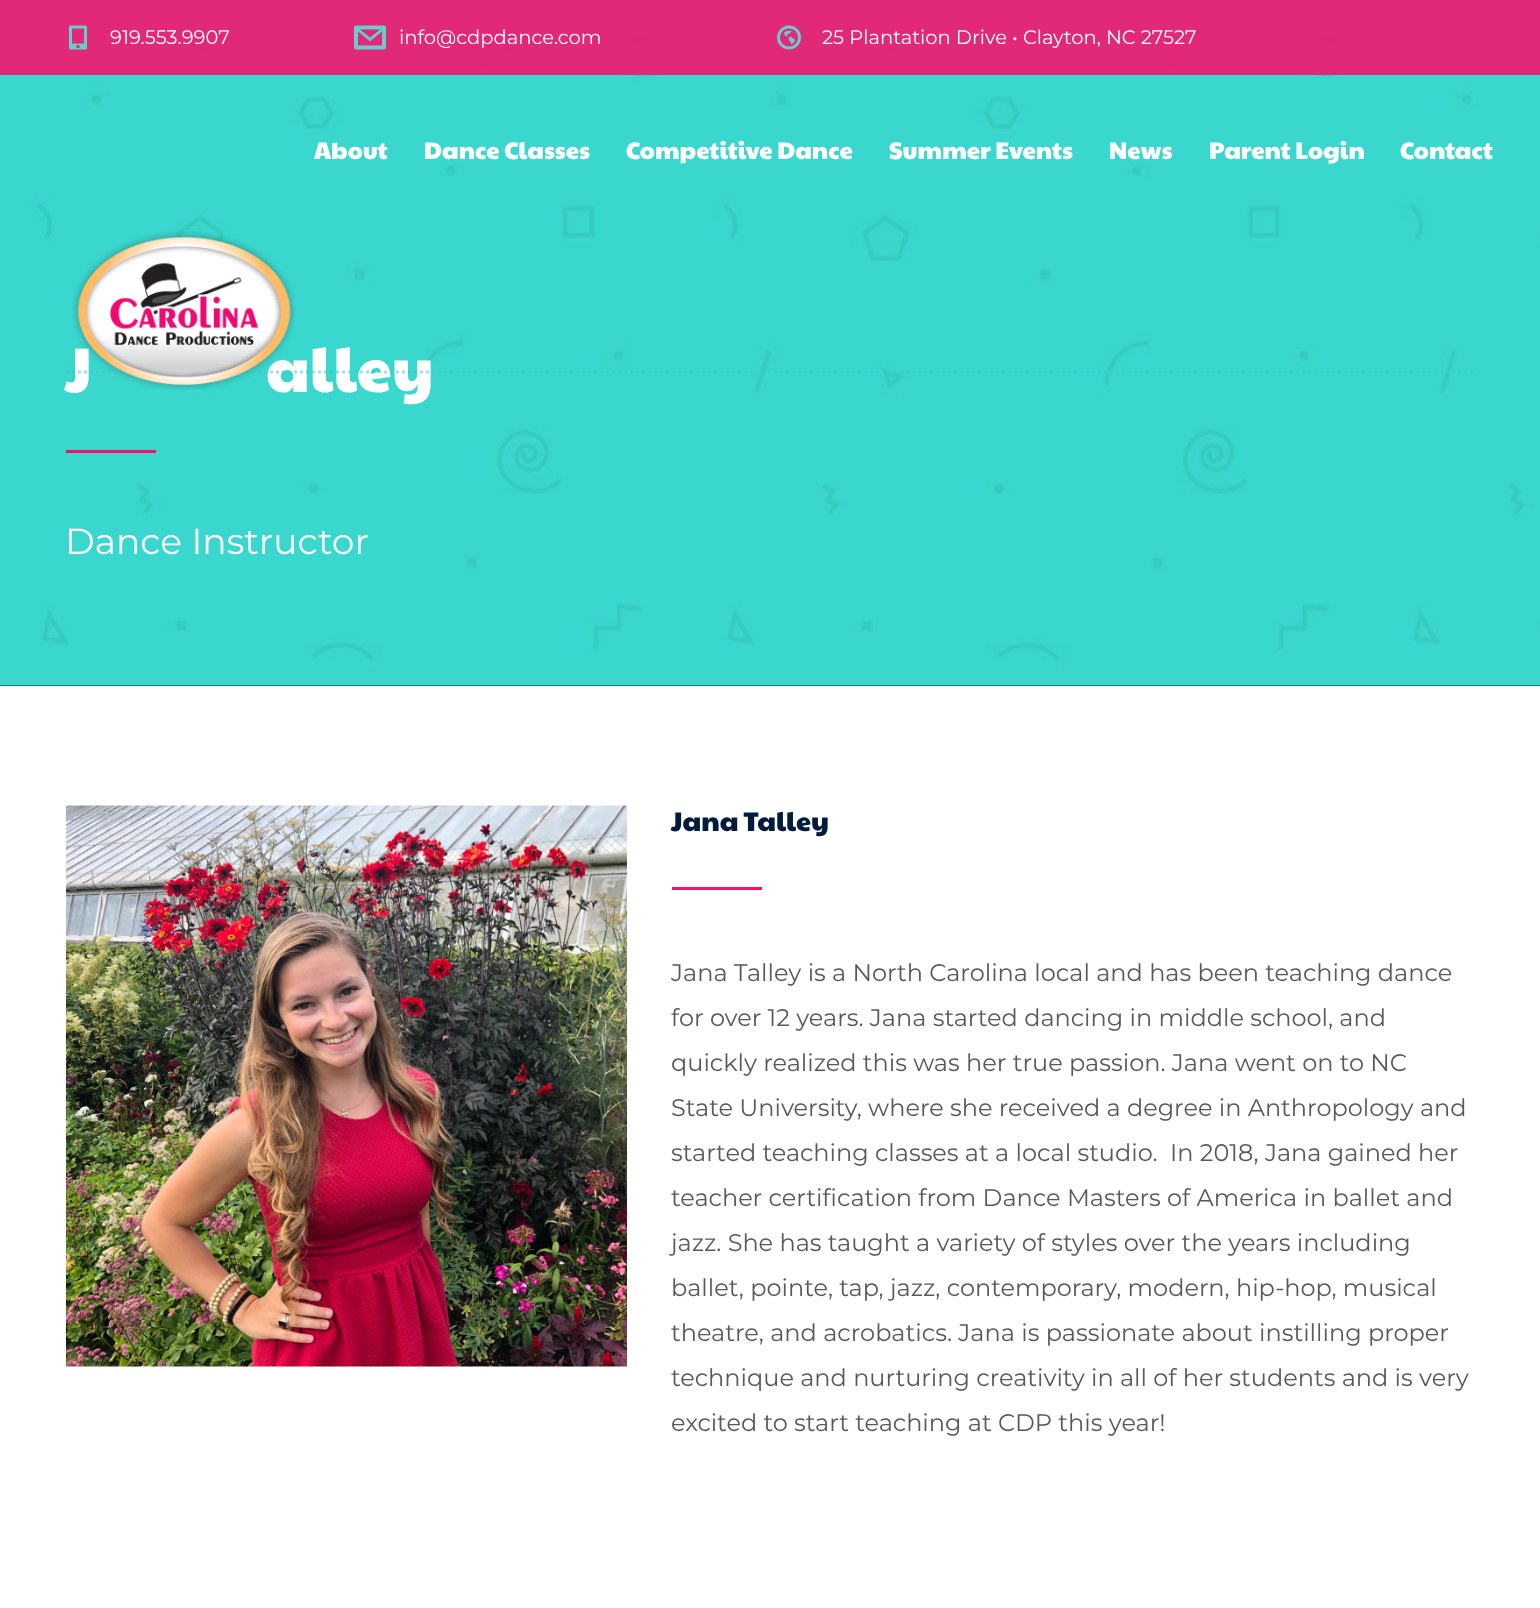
<svg xmlns="http://www.w3.org/2000/svg" xmlns:xlink="http://www.w3.org/1999/xlink" width="1540" height="1608" viewBox="0 0 1540 1608">
<style>
.cls-1{font:19.5px Montserrat;fill:#ffffff}
.cls-2{font:24px Paytone One;fill:#ffffff}
.cls-3{font:63px Paytone One;fill:#ffffff}
.cls-4{font:36px Montserrat;fill:#ffffff}
.cls-5{font:27px Paytone One;fill:#011b3a}
.cls-6{font:24px Montserrat;fill:#595959}
</style>
<rect width="100%" height="100%" fill="#011b3a"/>
<image xlink:href="image4.png" x="0" y="0" width="1540" height="686"/>
<rect fill="#ff0a68" fill-opacity="0.85" x="0" y="0" width="1540" height="75"/>
<image xlink:href="image0.png" x="69" y="25" width="18" height="25"/>
<image xlink:href="image1.png" x="354" y="25" width="32" height="25"/>
<image xlink:href="image2.png" x="777" y="25" width="24" height="25"/>
<rect fill="#ff0a68" x="66" y="450" width="90" height="3"/>
<rect fill="#ffffff" x="0" y="686" width="1540" height="922"/>
<image xlink:href="image5.png" x="66" y="805" width="561" height="562"/>
<rect fill="#ff0a68" x="672" y="887" width="90" height="3"/>
<text class="cls-1" x="110" y="44">919.553.9907</text>
<text class="cls-1" x="399" y="44">info@cdpdance.com</text>
<text class="cls-1" x="822" y="44">25 Plantation Drive • Clayton, NC 27527</text>
<text class="cls-2" x="314" y="159">About</text>
<text class="cls-2" x="424" y="159">Dance Classes</text>
<text class="cls-2" x="626" y="159">Competitive Dance</text>
<text class="cls-2" x="889" y="159">Summer Events</text>
<text class="cls-2" x="1109" y="159">News</text>
<text class="cls-2" x="1209" y="159">Parent Login</text>
<text class="cls-2" x="1400" y="159">Contact</text>
<text class="cls-3" x="65" y="392">J</text>
<text class="cls-3" x="266" y="392">alley</text>
<path fill="none" stroke="#33cccc" stroke-opacity="0.5" stroke-width="3" stroke-dasharray="3 3" d="M66 372H1476"/>
<image xlink:href="image3.png" x="72" y="231" width="223" height="159"/>
<text class="cls-4" x="65" y="554">Dance Instructor</text>
<text class="cls-5" x="671" y="831">Jana Talley</text>
<text class="cls-6" xml:space="preserve"><tspan x="671" y="981">Jana Talley is a North Carolina local and has been teaching dance</tspan><tspan x="671" y="1026">for over 12 years. Jana started dancing in middle school, and</tspan><tspan x="671" y="1071">quickly realized this was her true passion. Jana went on to NC</tspan><tspan x="671" y="1116">State University, where she received a degree in Anthropology and</tspan><tspan x="671" y="1161">started teaching classes at a local studio.  In 2018, Jana gained her</tspan><tspan x="671" y="1206">teacher certification from Dance Masters of America in ballet and</tspan><tspan x="671" y="1251">jazz. She has taught a variety of styles over the years including</tspan><tspan x="671" y="1296">ballet, pointe, tap, jazz, contemporary, modern, hip-hop, musical</tspan><tspan x="671" y="1341">theatre, and acrobatics. Jana is passionate about instilling proper</tspan><tspan x="671" y="1386">technique and nurturing creativity in all of her students and is very</tspan><tspan x="671" y="1431">excited to start teaching at CDP this year!</tspan></text>
</svg>
